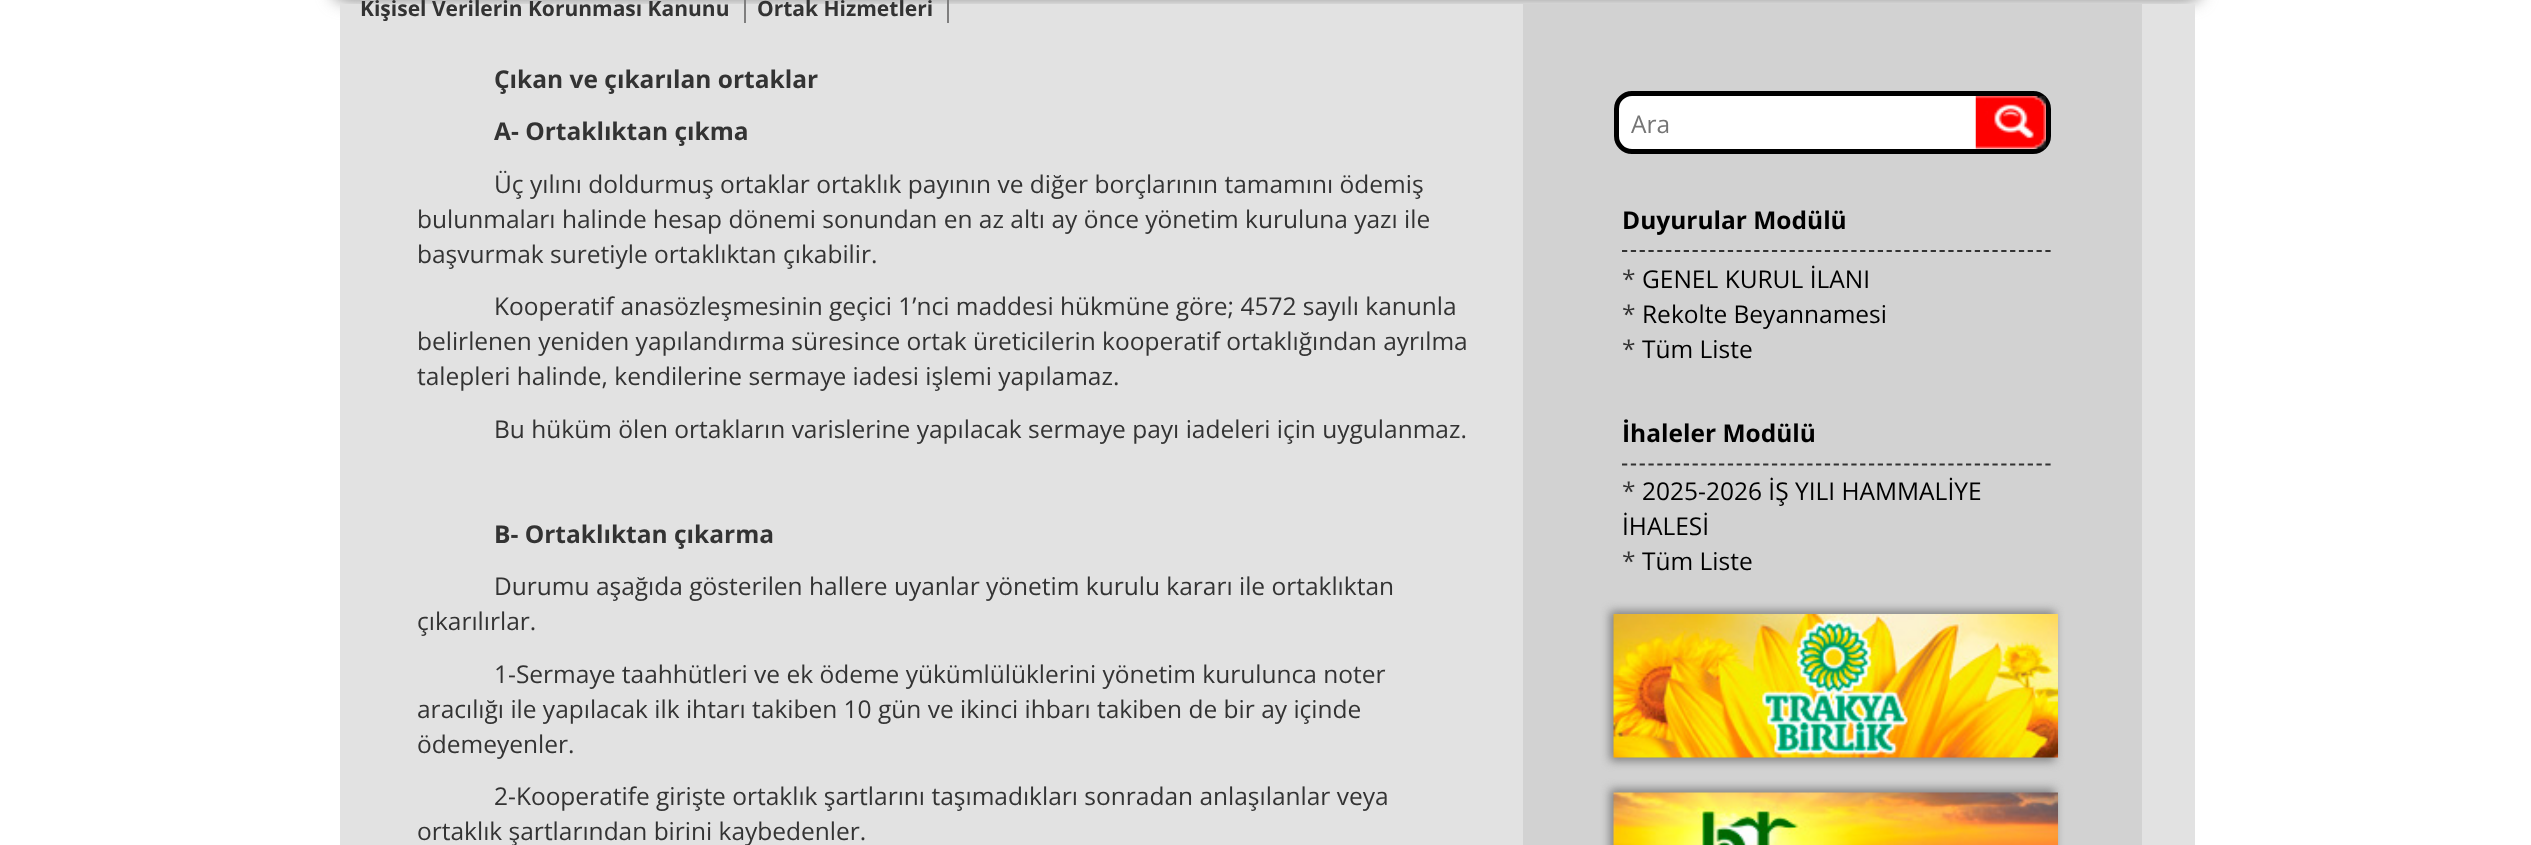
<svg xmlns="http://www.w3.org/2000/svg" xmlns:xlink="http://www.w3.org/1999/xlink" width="2531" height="845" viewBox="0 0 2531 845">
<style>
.cls-1{font:bold 21px Open Sans;fill:#333333}
.cls-2{font:bold 24.5px Open Sans;fill:#333333}
.cls-3{font:24.5px Open Sans;fill:#333333}
.cls-4{font:24.5px Open Sans;fill:#757575}
.cls-5{font:bold 24.5px Open Sans;fill:#000000}
.cls-6{font:24.5px Open Sans;fill:#000000}
</style>
<rect width="100%" height="100%" fill="#ffffff"/>
<rect fill="#808080" filter="blur(9px)" x="334" y="-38" width="1866" height="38" rx="11"/>
<rect fill="#e2e2e2" x="340" y="4" width="1855" height="841"/>
<rect fill="#7f7e7e" x="744" y="0" width="2" height="23"/>
<rect fill="#7f7e7e" x="947" y="0" width="2" height="23"/>
<rect fill="#d2d2d2" x="1523" y="4" width="619" height="841"/>
<rect fill="#ffffff" stroke="#000000" stroke-width="5" x="1616.5" y="93.5" width="432" height="58" rx="15.5"/>
<image xlink:href="image0.png" x="1975" y="96" width="71" height="53"/>
<path fill="none" stroke="#333333" stroke-width="1.8" stroke-dasharray="5.25 3.57" d="M1622 251H2051"/>
<path fill="none" stroke="#333333" stroke-width="1.8" stroke-dasharray="5.25 3.57" d="M1622 464.5H2051"/>
<rect fill="#808080" filter="blur(5px)" x="1610" y="611" width="445" height="150"/>
<image xlink:href="image1.png" x="1613" y="614" width="445" height="144"/>
<rect fill="#808080" filter="blur(5px)" x="1610" y="789" width="445" height="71"/>
<image xlink:href="image2.png" x="1613" y="792" width="445" height="53"/>
<text class="cls-1" x="360" y="16">Kişisel Verilerin Korunması Kanunu</text>
<text class="cls-1" x="757" y="16">Ortak Hizmetleri</text>
<text class="cls-2" x="494" y="88">Çıkan ve çıkarılan ortaklar</text>
<text class="cls-2" x="494" y="140">A- Ortaklıktan çıkma</text>
<text class="cls-3" x="494" y="193">Üç yılını doldurmuş ortaklar ortaklık payının ve diğer borçlarının tamamını ödemiş</text>
<text class="cls-3"><tspan x="417" y="228">bulunmaları halinde hesap dönemi sonundan en az altı ay önce yönetim kuruluna yazı ile</tspan><tspan x="417" y="263">başvurmak suretiyle ortaklıktan çıkabilir.</tspan></text>
<text class="cls-3" x="494" y="315">Kooperatif anasözleşmesinin geçici 1’nci maddesi hükmüne göre; 4572 sayılı kanunla</text>
<text class="cls-3"><tspan x="417" y="350">belirlenen yeniden yapılandırma süresince ortak üreticilerin kooperatif ortaklığından ayrılma</tspan><tspan x="417" y="385">talepleri halinde, kendilerine sermaye iadesi işlemi yapılamaz.</tspan></text>
<text class="cls-3" x="494" y="438">Bu hüküm ölen ortakların varislerine yapılacak sermaye payı iadeleri için uygulanmaz.</text>
<text class="cls-2" x="494" y="543">B- Ortaklıktan çıkarma</text>
<text class="cls-3" x="494" y="595">Durumu aşağıda gösterilen hallere uyanlar yönetim kurulu kararı ile ortaklıktan</text>
<text class="cls-3" x="417" y="630">çıkarılırlar.</text>
<text class="cls-3" x="494" y="683">1-Sermaye taahhütleri ve ek ödeme yükümlülüklerini yönetim kurulunca noter</text>
<text class="cls-3"><tspan x="417" y="718">aracılığı ile yapılacak ilk ihtarı takiben 10 gün ve ikinci ihbarı takiben de bir ay içinde</tspan><tspan x="417" y="753">ödemeyenler.</tspan></text>
<text class="cls-3" x="494" y="805">2-Kooperatife girişte ortaklık şartlarını taşımadıkları sonradan anlaşılanlar veya</text>
<text class="cls-3" x="417" y="840">ortaklık şartlarından birini kaybedenler.</text>
<text class="cls-4" x="1631" y="133">Ara</text>
<text class="cls-5" x="1622" y="229">Duyurular Modülü</text>
<text class="cls-3" x="1622" y="288">*</text>
<text class="cls-6" x="1642" y="288">GENEL KURUL İLANI</text>
<text class="cls-3" x="1622" y="323">*</text>
<text class="cls-6" x="1642" y="323">Rekolte Beyannamesi</text>
<text class="cls-3" x="1622" y="358">*</text>
<text class="cls-6" x="1642" y="358">Tüm Liste</text>
<text class="cls-5" x="1622" y="442">İhaleler Modülü</text>
<text class="cls-3" x="1622" y="500">*</text>
<text class="cls-6" x="1642" y="500">2025-2026 İŞ YILI HAMMALİYE</text>
<text class="cls-6" x="1622" y="535">İHALESİ</text>
<text class="cls-3" x="1622" y="570">*</text>
<text class="cls-6" x="1642" y="570">Tüm Liste</text>
</svg>
